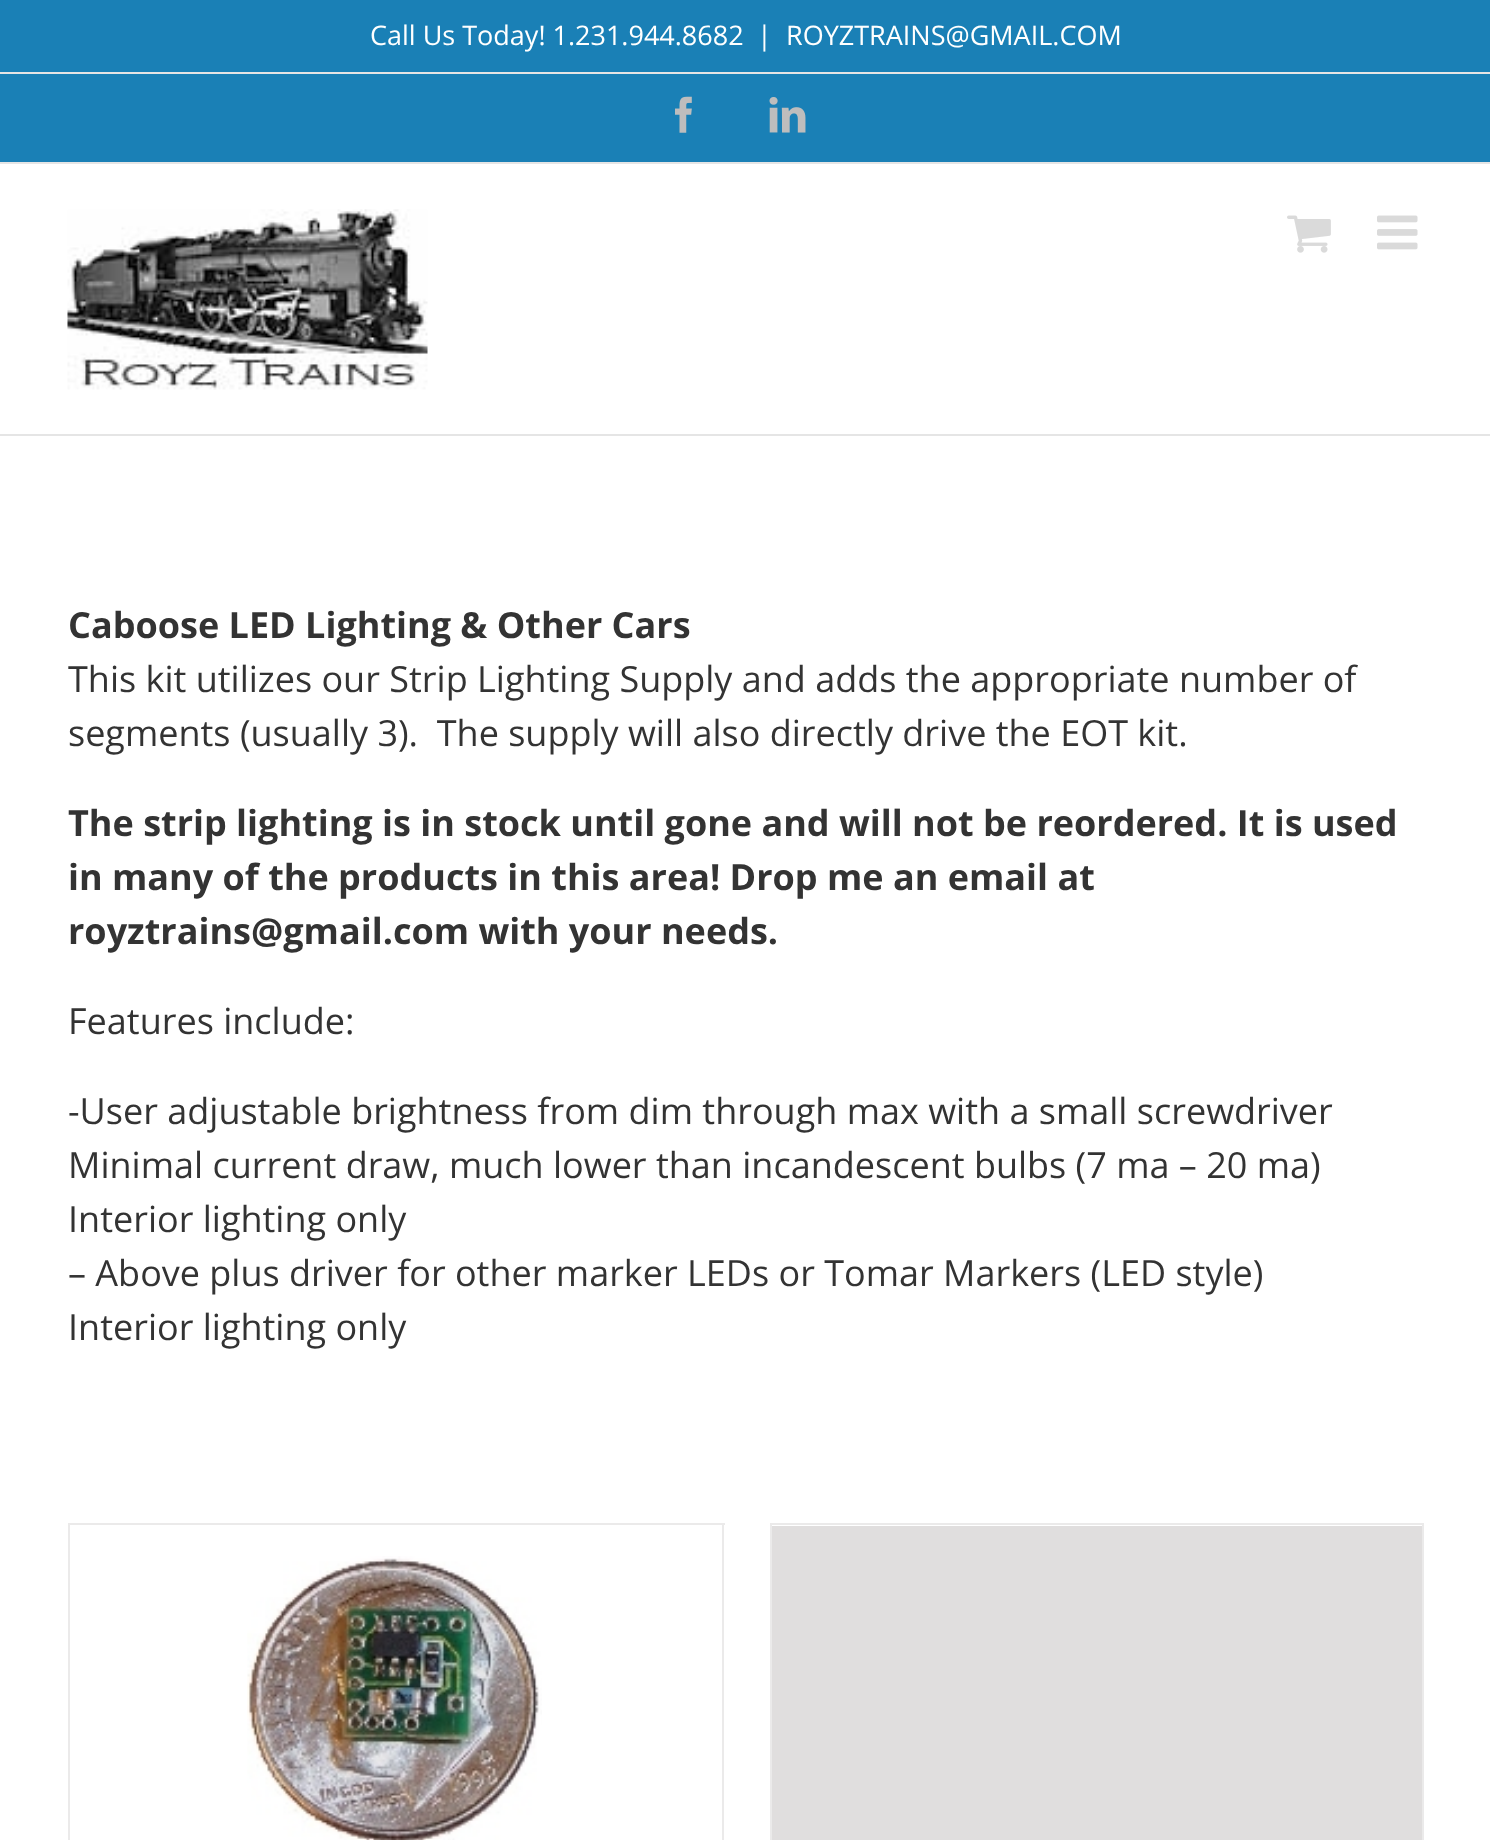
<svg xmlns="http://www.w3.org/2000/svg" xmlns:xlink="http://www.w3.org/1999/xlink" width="1490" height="1840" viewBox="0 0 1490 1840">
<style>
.cls-1{font:27px Open Sans;fill:#ffffff}
.cls-2{font:bold 36px Open Sans;fill:#333333}
.cls-3{font:36px Open Sans;fill:#333333}
</style>
<rect width="100%" height="100%" fill="#ffffff"/>
<rect fill="#1a80b6" x="0" y="0" width="1490" height="162"/>
<rect fill="#e5e5e5" x="0" y="162" width="1490" height="2"/>
<rect fill="#e5e5e5" x="0" y="72" width="1490" height="2"/>
<image xlink:href="image0.png" x="675" y="96" width="17" height="37"/>
<image xlink:href="image1.png" x="769" y="97" width="37" height="36"/>
<rect fill="#e5e5e5" x="0" y="434" width="1490" height="2"/>
<image xlink:href="image2.png" x="67" y="209" width="361" height="181"/>
<image xlink:href="image3.png" x="1287" y="215" width="44" height="38"/>
<image xlink:href="image4.png" x="1377" y="215" width="41" height="35"/>
<rect fill="#ebeaea" x="68" y="1523" width="657" height="2"/>
<rect fill="#ebeaea" x="722" y="1523" width="2" height="317"/>
<rect fill="#ebeaea" x="68" y="1523" width="2" height="317"/>
<image xlink:href="image5.png" x="247" y="1556" width="295" height="284"/>
<rect fill="#ebeaea" x="770" y="1523" width="654" height="2"/>
<rect fill="#ebeaea" x="1422" y="1523" width="2" height="317"/>
<rect fill="#ebeaea" x="770" y="1523" width="2" height="317"/>
<rect fill="#e0dede" x="772" y="1526" width="650" height="314"/>
<text class="cls-1" x="370" y="45">Call Us Today! 1.231.944.8682</text>
<text class="cls-1" x="757" y="45">|</text>
<text class="cls-1" x="786" y="45">ROYZTRAINS@GMAIL.COM</text>
<text class="cls-2" x="68" y="638">Caboose LED Lighting &amp; Other Cars</text>
<text class="cls-3" xml:space="preserve"><tspan x="68" y="692">This kit utilizes our Strip Lighting Supply and adds the appropriate number of</tspan><tspan x="68" y="746">segments (usually 3).  The supply will also directly drive the EOT kit.</tspan></text>
<text class="cls-2"><tspan x="68" y="836">The strip lighting is in stock until gone and will not be reordered. It is used</tspan><tspan x="68" y="890">in many of the products in this area! Drop me an email at</tspan><tspan x="68" y="944">royztrains@gmail.com with your needs.</tspan></text>
<text class="cls-3" x="68" y="1034">Features include:</text>
<text class="cls-3"><tspan x="68" y="1124">-User adjustable brightness from dim through max with a small screwdriver</tspan><tspan x="68" y="1178">Minimal current draw, much lower than incandescent bulbs (7 ma – 20 ma)</tspan><tspan x="68" y="1232">Interior lighting only</tspan><tspan x="68" y="1286">– Above plus driver for other marker LEDs or Tomar Markers (LED style)</tspan><tspan x="68" y="1340">Interior lighting only</tspan></text>
</svg>
